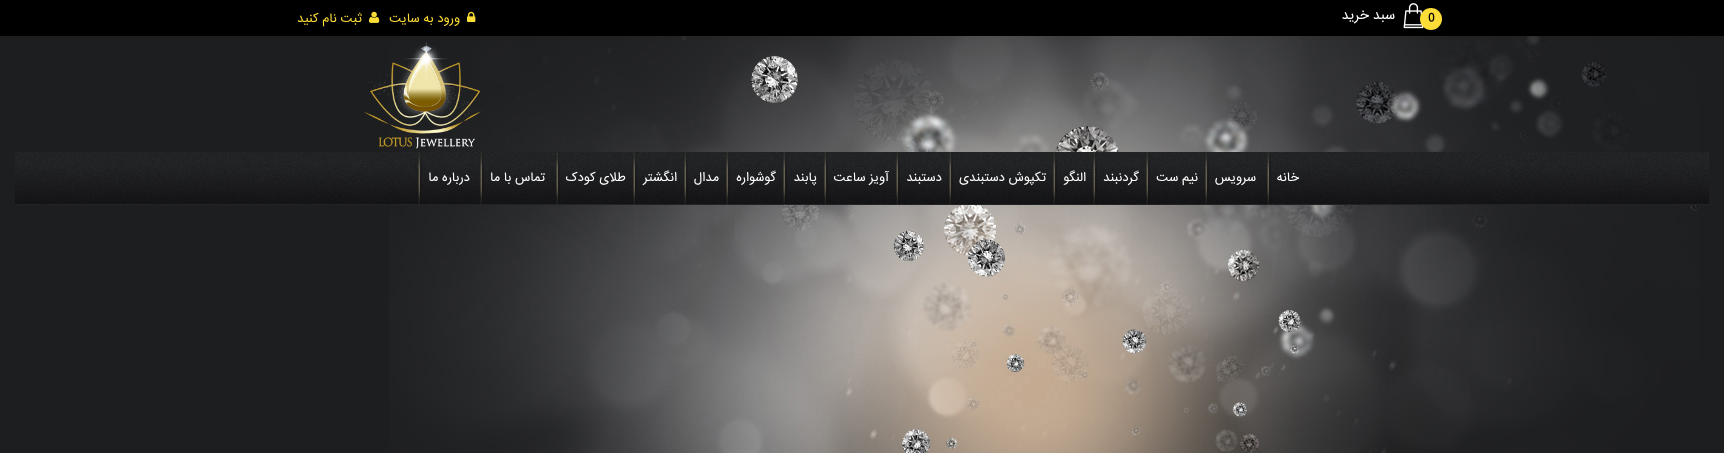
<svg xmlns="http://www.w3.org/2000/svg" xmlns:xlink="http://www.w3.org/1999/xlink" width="1724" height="453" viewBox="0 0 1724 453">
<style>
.cls-1{font:bold 11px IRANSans;fill:#000000}
.cls-2{font:14px IRANSans;direction:rtl;fill:#ffffff}
.cls-3{font:13px IRANSans;direction:rtl;fill:#fcdd37}
.cls-4{font:13px IRANSans;direction:rtl;fill:#ffffff}
</style>
<rect width="100%" height="100%" fill="#1d1e20"/>
<image xlink:href="image0.png" x="389" y="36" width="1311" height="417"/>
<rect fill="#000000" x="0" y="0" width="1724" height="36"/>
<image xlink:href="image1.png" x="1403" y="3" width="21" height="26"/>
<circle fill="#fcdd37" cx="1431" cy="19" r="11"/>
<image xlink:href="image2.png" x="467" y="11" width="9" height="11"/>
<image xlink:href="image3.png" x="369" y="11" width="11" height="12"/>
<image xlink:href="image4.png" x="363" y="42" width="118" height="107"/>
<image xlink:href="image5.png" x="15" y="152" width="1694" height="53"/>
<image xlink:href="image6.png" x="1267" y="152" width="4" height="53"/>
<image xlink:href="image7.png" x="1205" y="152" width="4" height="53"/>
<image xlink:href="image8.png" x="1146" y="152" width="4" height="53"/>
<image xlink:href="image9.png" x="1093" y="152" width="4" height="53"/>
<image xlink:href="image10.png" x="1053" y="152" width="4" height="53"/>
<image xlink:href="image11.png" x="949" y="152" width="4" height="53"/>
<image xlink:href="image12.png" x="896" y="152" width="4" height="53"/>
<image xlink:href="image13.png" x="824" y="152" width="4" height="53"/>
<image xlink:href="image14.png" x="783" y="152" width="4" height="53"/>
<image xlink:href="image15.png" x="726" y="152" width="4" height="53"/>
<image xlink:href="image16.png" x="684" y="152" width="4" height="53"/>
<image xlink:href="image17.png" x="633" y="152" width="4" height="53"/>
<image xlink:href="image18.png" x="556" y="152" width="4" height="53"/>
<image xlink:href="image19.png" x="480" y="152" width="4" height="53"/>
<image xlink:href="image20.png" x="418" y="152" width="4" height="53"/>
<text class="cls-1" x="1428" y="21">0</text>
<text class="cls-2" x="1395" y="19">سبد خرید</text>
<text class="cls-3" x="460" y="22">ورود به سایت</text>
<text class="cls-3" x="362" y="22">ثبت نام کنید</text>
<text class="cls-4" x="1299" y="181">خانه</text>
<text class="cls-4" x="1256" y="181">سرویس</text>
<text class="cls-4" x="1198" y="181">نیم ست</text>
<text class="cls-4" x="1139" y="181">گردنبند</text>
<text class="cls-4" x="1086" y="181">النگو</text>
<text class="cls-4" x="1046" y="181">تکپوش دستبندی</text>
<text class="cls-4" x="942" y="181">دستبند</text>
<text class="cls-4" x="889" y="181">آویز ساعت</text>
<text class="cls-4" x="817" y="181">پابند</text>
<text class="cls-4" x="776" y="181">گوشواره</text>
<text class="cls-4" x="719" y="181">مدال</text>
<text class="cls-4" x="677" y="181">انگشتر</text>
<text class="cls-4" x="626" y="181">طلای کودک</text>
<text class="cls-4" x="545" y="181">تماس با ما</text>
<text class="cls-4" x="470" y="181">درباره ما</text>
</svg>
